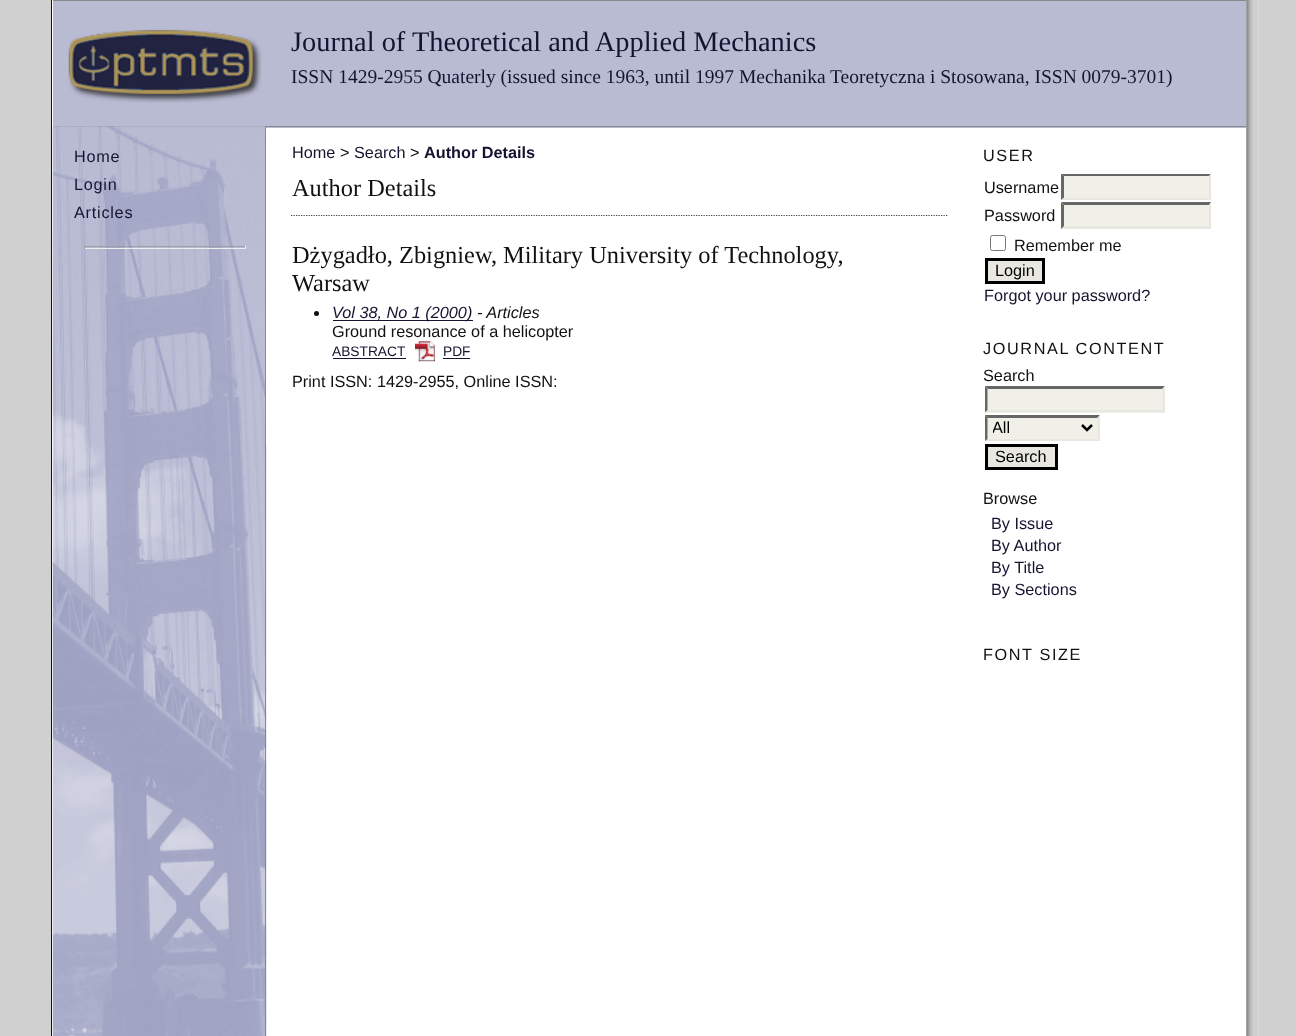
<svg xmlns="http://www.w3.org/2000/svg" xmlns:xlink="http://www.w3.org/1999/xlink" width="1296" height="1036" viewBox="0 0 1296 1036">
<style>
.cls-1{font:28.4px Liberation Serif;fill:#151430}
.cls-2{font:19.5px Liberation Serif;fill:#151430}
.cls-3{font:16.25px Liberation Sans;fill:#151430}
.cls-4{font:16.25px Liberation Sans;fill:#111111}
.cls-5{font:bold 16.25px Liberation Sans;fill:#151430}
.cls-6{font:24.4px Liberation Serif;fill:#111111}
.cls-7{font:italic 16.25px Liberation Sans;fill:#151430}
.cls-8{font:italic 16.25px Liberation Sans;fill:#111111}
.cls-9{font:13.75px Liberation Sans;fill:#151430}
.cls-10{font:16.25px Liberation Sans;letter-spacing:0.75px;fill:#151430}
.cls-11{font:16.25px Liberation Sans;letter-spacing:1.6px;fill:#111111}
.cls-12{font:16.25px Liberation Sans;fill:#000000}
</style>
<defs>
<clipPath id="clip1"><rect x="993" y="418" width="85" height="21"/></clipPath>
</defs>
<rect width="100%" height="100%" fill="#d0d0d0"/>
<rect fill="#ffffff" x="52" y="0" width="1207" height="1036"/>
<image xlink:href="image0.png" x="1246" y="0" width="13" height="1036"/>
<rect fill="#111111" x="51" y="0" width="1" height="1036"/>
<rect fill="#b9bbd3" x="53" y="1" width="1193" height="127"/>
<rect fill="#888888" x="53" y="0" width="1193" height="1"/>
<rect fill="#888888" x="53" y="126" width="1193" height="1"/>
<image xlink:href="image1.png" x="68" y="29" width="194" height="74"/>
<image xlink:href="image3.png" x="52" y="126" width="215" height="910"/>
<rect fill="#ffffff" x="266" y="128" width="1" height="318"/>
<path fill="none" stroke="#404040" stroke-width="1.2" stroke-dasharray="1.25 1.25" d="M291 215.5H947.5"/>
<circle fill="#111111" cx="316.5" cy="313.5" r="2.5"/>
<rect fill="#151430" x="333" y="320" width="140" height="1"/>
<rect fill="#151430" x="333" y="358" width="73" height="1"/>
<image xlink:href="image2.png" x="415" y="341" width="20" height="21"/>
<rect fill="#151430" x="443" y="358" width="27" height="1"/>
<rect fill="#888888" x="265" y="126" width="1" height="910"/>
<rect fill="#9f9f9f" x="84" y="246" width="162" height="1"/>
<rect fill="#eeeeee" x="245" y="246" width="1" height="3"/>
<rect fill="#eeeeee" x="84" y="248" width="162" height="1"/>
<rect fill="#9f9f9f" x="84" y="246" width="1" height="3"/>
<rect fill="#f0f0e8" x="1061" y="174" width="150" height="26"/>
<path fill="#666666" d="M1061 174H1211L1209 176H1064Z"/>
<path fill="#e8e8e1" d="M1211 174V200L1209 197.5V176Z"/>
<path fill="#e8e8e1" d="M1211 200H1061L1064 198H1209Z"/>
<path fill="#666666" d="M1061 200V174L1064 176V197.5Z"/>
<rect fill="#f0f0e8" x="1061" y="203" width="150" height="26"/>
<path fill="#666666" d="M1061 202H1211L1209 205H1064Z"/>
<path fill="#e8e8e1" d="M1211 202.5V229L1209 226V205Z"/>
<path fill="#e8e8e1" d="M1211 229H1061L1064 226H1209Z"/>
<path fill="#666666" d="M1061 229V202.5L1064 205V226Z"/>
<rect fill="none" stroke="#767676" x="990.5" y="235.5" width="15" height="15" rx="2"/>
<rect fill="#e8e8e1" stroke="#000000" stroke-width="3" x="986.5" y="259.5" width="57" height="23"/>
<rect fill="#f0f0e8" x="985" y="386" width="180" height="27"/>
<path fill="#666666" d="M985 386H1165L1162 389H988Z"/>
<path fill="#e8e8e1" d="M1165 386V412.5L1162.5 410V389Z"/>
<path fill="#e8e8e1" d="M1165 412H985L988 410H1162Z"/>
<path fill="#666666" d="M985 412.5V386L987.5 389V410Z"/>
<rect fill="#f0f0e8" x="985" y="415" width="115" height="26"/>
<path fill="#666666" d="M985 415H1100L1098 418H988Z"/>
<path fill="#e8e8e1" d="M1100 415V441L1097.5 439V417.5Z"/>
<path fill="#e8e8e1" d="M1100 441H985L988 439H1098Z"/>
<path fill="#666666" d="M985 441V415L987.5 417.5V439Z"/>
<path fill="none" stroke="#000000" stroke-width="2.5" d="M1082 425L1087 430L1092 425"/>
<rect fill="#e8e8e1" stroke="#000000" stroke-width="3" x="986.5" y="445.5" width="70" height="23"/>
<text class="cls-1" x="291" y="51">Journal of Theoretical and Applied Mechanics</text>
<text class="cls-2" x="291" y="83">ISSN 1429-2955 Quaterly (issued since 1963, until 1997 Mechanika Teoretyczna i Stosowana, ISSN 0079-3701)</text>
<text class="cls-3" x="292" y="158">Home</text>
<text class="cls-4" x="340" y="158">&gt;</text>
<text class="cls-3" x="354" y="158">Search</text>
<text class="cls-4" x="410" y="158">&gt;</text>
<text class="cls-5" x="424" y="158">Author Details</text>
<text class="cls-6" x="292" y="196">Author Details</text>
<text class="cls-6"><tspan x="292" y="263">Dżygadło, Zbigniew, Military University of Technology,</tspan><tspan x="292" y="291">Warsaw</tspan></text>
<text class="cls-7" x="332" y="318">Vol 38, No 1 (2000)</text>
<text class="cls-8" x="477" y="318">- Articles</text>
<text class="cls-4" x="332" y="337">Ground resonance of a helicopter</text>
<text class="cls-9" x="332" y="356">ABSTRACT</text>
<text class="cls-9" x="443" y="356">PDF</text>
<text class="cls-4" x="292" y="387">Print ISSN: 1429-2955, Online ISSN:</text>
<text class="cls-10"><tspan x="74" y="162">Home</tspan><tspan x="74" y="190">Login</tspan><tspan x="74" y="218">Articles</tspan></text>
<text class="cls-11" x="983" y="161">USER</text>
<text class="cls-4"><tspan x="984" y="193">Username</tspan><tspan x="984" y="221">Password</tspan></text>
<text class="cls-4" x="1014" y="251">Remember me</text>
<text class="cls-12" x="995" y="276">Login</text>
<text class="cls-3" x="984" y="301">Forgot your password?</text>
<text class="cls-11" x="983" y="354">JOURNAL CONTENT</text>
<text class="cls-4" x="983" y="381">Search</text>
<g clip-path="url(#clip1)">
<text class="cls-12" x="992" y="433">All</text>
</g>
<text class="cls-12" x="995" y="462">Search</text>
<text class="cls-4" x="983" y="504">Browse</text>
<text class="cls-3"><tspan x="991" y="529">By Issue</tspan><tspan x="991" y="551">By Author</tspan><tspan x="991" y="573">By Title</tspan><tspan x="991" y="595">By Sections</tspan></text>
<text class="cls-11" x="983" y="660">FONT SIZE</text>
</svg>
